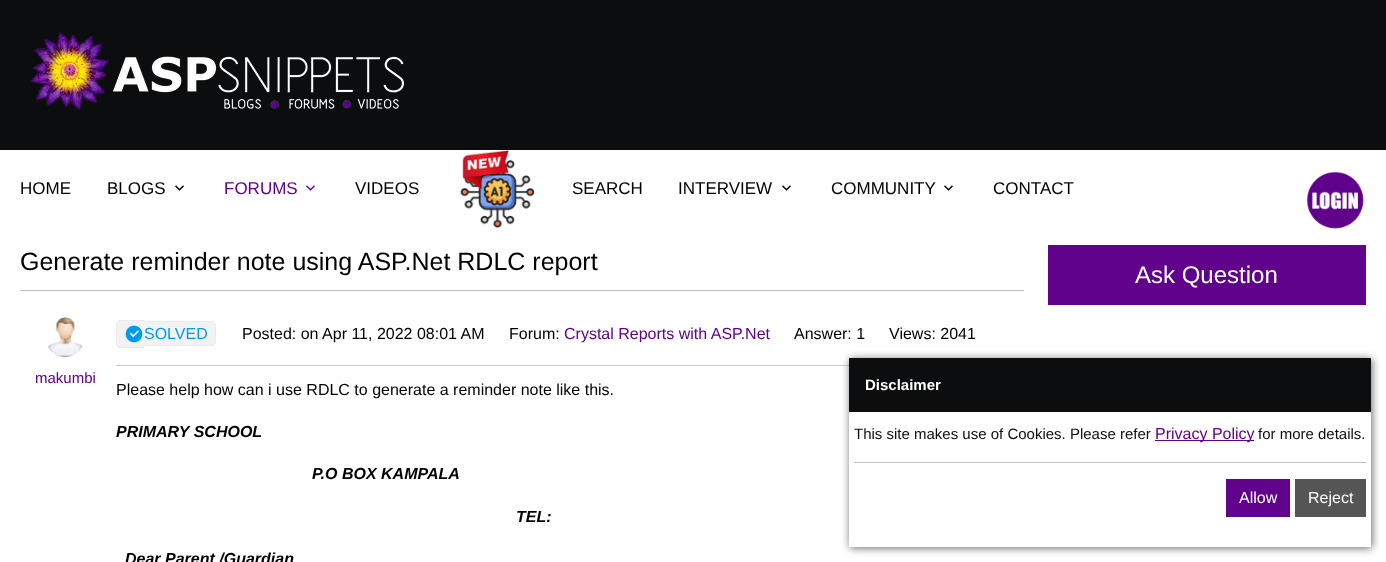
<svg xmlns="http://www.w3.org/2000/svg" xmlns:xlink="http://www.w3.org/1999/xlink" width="1386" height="562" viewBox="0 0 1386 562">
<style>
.cls-1{font:17px Liberation Sans;fill:#000000}
.cls-2{font:17px Liberation Sans;fill:#61028d}
.cls-3{font:25px Liberation Sans;fill:#000000}
.cls-4{font:15px Liberation Sans;fill:#61028d}
.cls-5{font:16px Liberation Sans;fill:#009bee}
.cls-6{font:16px Liberation Sans;fill:#000000}
.cls-7{font:16px Liberation Sans;fill:#61028d}
.cls-8{font:italic bold 16px Liberation Sans;fill:#000000}
.cls-9{font:24px Liberation Sans;fill:#ffffff}
.cls-10{font:bold 15px Liberation Sans;fill:#ffffff}
.cls-11{font:15px Liberation Sans;fill:#0c0d0e}
.cls-12{font:16px Liberation Sans;fill:#ffffff}
</style>
<rect width="100%" height="100%" fill="#ffffff"/>
<rect fill="#0c0d0e" x="0" y="0" width="1386" height="150"/>
<image xlink:href="image0.png" x="30" y="32" width="375" height="78"/>
<image xlink:href="image1.png" x="175" y="185" width="9" height="6"/>
<image xlink:href="image2.png" x="306" y="185" width="9" height="6"/>
<image xlink:href="image3.png" x="460" y="150" width="75" height="78"/>
<image xlink:href="image1.png" x="782" y="185" width="9" height="6"/>
<image xlink:href="image1.png" x="944" y="185" width="9" height="6"/>
<image xlink:href="image4.png" x="1306" y="171" width="58" height="58"/>
<rect fill="#bfbfbf" x="20" y="290" width="1004" height="1"/>
<image xlink:href="image5.png" x="48" y="317" width="35" height="40"/>
<path fill="#f2f2f3" d="M120 320H144V348H120C118 348 116 346 116 344V324C116 322 118 320 120 320Z"/>
<path fill="#797f87" fill-opacity="0.05" fill-rule="evenodd" d="M120 320H144V348H120C118 348 116 346 116 344V324C116 322 118 320 120 320ZM120 321H144V347H120C118.5 347 117 345.5 117 344V324C117 322.5 118.5 321 120 321Z"/>
<image xlink:href="image6.png" x="125" y="325" width="18" height="18"/>
<path fill="#f2f2f3" d="M144 321H212C214 321 216 323 216 325V342C216 344 214 346 212 346H144Z"/>
<path fill="#797f87" fill-opacity="0.05" fill-rule="evenodd" d="M144 321H212C214 321 216 323 216 325V342C216 344 214 346 212 346H144ZM144 322H212C214 322 215 323 215 325V342C215 344 214 345 212 345H144Z"/>
<rect fill="#cccccc" x="116" y="365" width="733" height="1"/>
<rect fill="#61028d" x="1048" y="245" width="318" height="60"/>
<rect fill="#666666" filter="blur(4px)" x="850" y="359" width="522" height="189"/>
<rect fill="#ffffff" x="849" y="412" width="522" height="135"/>
<rect fill="#0c0d0e" x="849" y="358" width="522" height="54"/>
<rect fill="#61028d" x="1155" y="440" width="99" height="1"/>
<rect fill="#c2c3c3" x="854" y="462" width="512" height="1"/>
<rect fill="#61028d" x="1226" y="479" width="64" height="38"/>
<rect fill="#555555" x="1295" y="479" width="71" height="38"/>
<text class="cls-1" x="20" y="194">HOME</text>
<text class="cls-1" x="107" y="194">BLOGS</text>
<text class="cls-2" x="224" y="194">FORUMS</text>
<text class="cls-1" x="355" y="194">VIDEOS</text>
<text class="cls-1" x="572" y="194">SEARCH</text>
<text class="cls-1" x="678" y="194">INTERVIEW</text>
<text class="cls-1" x="831" y="194">COMMUNITY</text>
<text class="cls-1" x="993" y="194">CONTACT</text>
<text class="cls-3" x="20" y="270">Generate reminder note using ASP.Net RDLC report</text>
<text class="cls-4" x="35" y="383">makumbi</text>
<text class="cls-5" x="144" y="339">SOLVED</text>
<text class="cls-6" x="242" y="339">Posted: on Apr 11, 2022 08:01 AM</text>
<text class="cls-6" x="509" y="339">Forum:</text>
<text class="cls-7" x="564" y="339">Crystal Reports with ASP.Net</text>
<text class="cls-6" x="794" y="339">Answer: 1</text>
<text class="cls-6" x="889" y="339">Views: 2041</text>
<text class="cls-6" x="116" y="395">Please help how can i use RDLC to generate a reminder note like this.</text>
<text class="cls-8" x="116" y="437">PRIMARY SCHOOL</text>
<text class="cls-8" x="312" y="479">P.O BOX KAMPALA</text>
<text class="cls-8" x="516" y="522">TEL:</text>
<text class="cls-8" x="125" y="564">Dear Parent /Guardian</text>
<text class="cls-9" x="1135" y="283">Ask Question</text>
<text class="cls-10" x="865" y="390">Disclaimer</text>
<text class="cls-11" x="854" y="439">This site makes use of Cookies. Please refer</text>
<text class="cls-7" x="1155" y="439">Privacy Policy</text>
<text class="cls-11" x="1258" y="439">for more details.</text>
<text class="cls-12" x="1239" y="503">Allow</text>
<text class="cls-12" x="1308" y="503">Reject</text>
</svg>
